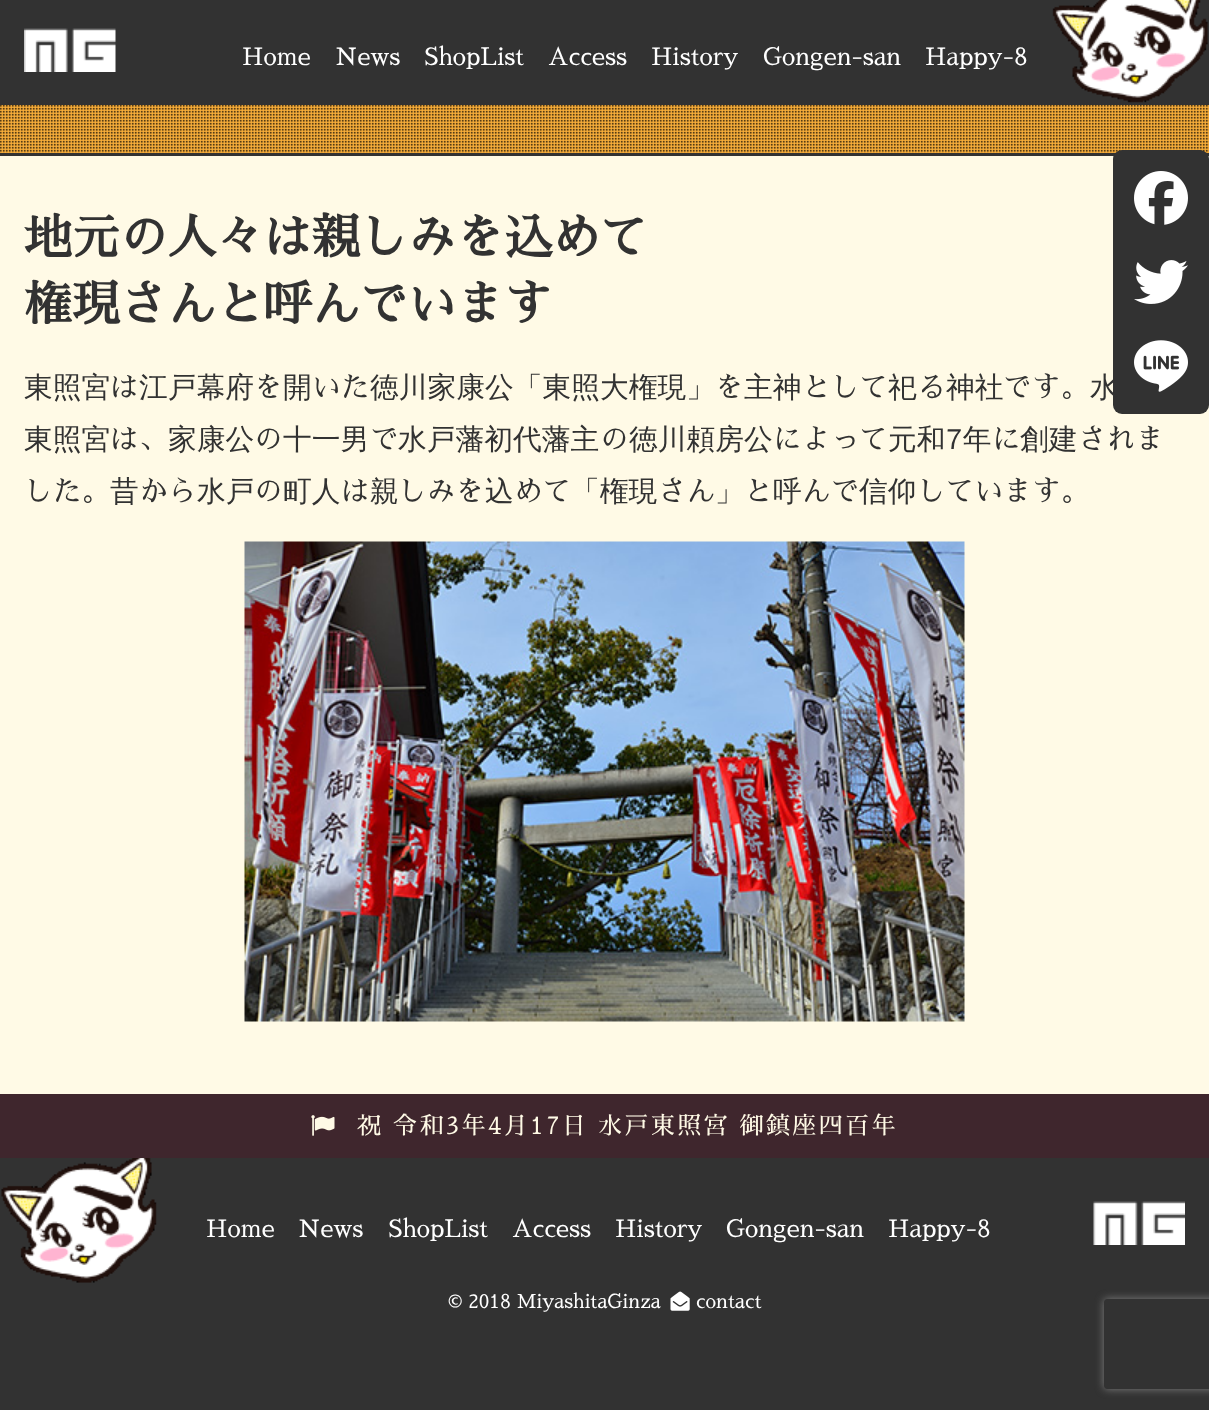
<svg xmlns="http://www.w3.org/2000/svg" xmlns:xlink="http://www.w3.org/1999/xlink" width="1209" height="1410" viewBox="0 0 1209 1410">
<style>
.cls-1{font:24px Sawarabi Mincho;fill:#ffffff}
.cls-2{font:bold 48px Sawarabi Mincho;fill:#323232}
.cls-3{font:500 28.75px WenQuanYi Zen Hei;fill:#323232}
.cls-4{font:28.75px Sawarabi Mincho;fill:#323232}
.cls-5{font:24px Sawarabi Mincho;letter-spacing:2.4px;fill:#fffae6}
.cls-6{font:19.25px Sawarabi Mincho;fill:#ffffff}
</style>
<defs>
<clipPath id="clip1"><path d="M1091 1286H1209V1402H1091ZM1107 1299H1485C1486.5 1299 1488 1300.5 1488 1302V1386C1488 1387.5 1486.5 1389 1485 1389H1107C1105.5 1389 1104 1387.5 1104 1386V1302C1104 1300.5 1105.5 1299 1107 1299Z" clip-rule="evenodd"/></clipPath>
</defs>
<rect width="100%" height="100%" fill="#323232"/>
<image xlink:href="image0.png" x="24" y="28" width="92" height="44"/>
<image xlink:href="image1.png" x="1052" y="0" width="156" height="103"/>
<rect fill="#fffae6" x="0" y="156" width="1209" height="938"/>
<rect fill="#fbb03b" x="0" y="105" width="1209" height="48"/>
<image xlink:href="image2.png" x="0" y="105" width="1209" height="48"/>
<image xlink:href="image3.png" x="244" y="541" width="721" height="481"/>
<rect fill="#323232" x="1113" y="150" width="96" height="264" rx="9"/>
<image xlink:href="image4.png" x="1134" y="171" width="54" height="54"/>
<image xlink:href="image5.png" x="1134" y="260" width="54" height="44"/>
<image xlink:href="image6.png" x="1134" y="340" width="54" height="52"/>
<rect fill="#3f262d" x="0" y="1094" width="1209" height="64"/>
<image xlink:href="image7.png" x="311" y="1115" width="24" height="21"/>
<image xlink:href="image8.png" x="1" y="1158" width="156" height="125"/>
<image xlink:href="image9.png" x="1093" y="1201" width="92" height="44"/>
<image xlink:href="image10.png" x="670" y="1291" width="20" height="20"/>
<g clip-path="url(#clip1)">
<rect fill="#808080" filter="blur(4px)" x="1104" y="1299" width="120" height="90" rx="3"/>
</g>
<text class="cls-1" x="242" y="65">Home</text>
<text class="cls-1" x="335" y="65">News</text>
<text class="cls-1" x="424" y="65">ShopList</text>
<text class="cls-1" x="548" y="65">Access</text>
<text class="cls-1" x="651" y="65">History</text>
<text class="cls-1" x="763" y="65">Gongen-san</text>
<text class="cls-1" x="925" y="65">Happy-8</text>
<text class="cls-2"><tspan x="24" y="254">地元の人々は親しみを込めて</tspan><tspan x="24" y="321">権現さんと呼んでいます</tspan></text>
<text class="cls-3" x="24" y="397">東照宮</text>
<text class="cls-4" x="110" y="397">は</text>
<text class="cls-3" x="139" y="397">江戸幕府</text>
<text class="cls-4" x="254" y="397">を</text>
<text class="cls-3" x="283" y="397">開</text>
<text class="cls-4" x="312" y="397">いた</text>
<text class="cls-3" x="370" y="397">徳川家康公「東照大権現」</text>
<text class="cls-4" x="715" y="397">を</text>
<text class="cls-3" x="744" y="397">主神</text>
<text class="cls-4" x="802" y="397">として</text>
<text class="cls-3" x="888" y="397">祀</text>
<text class="cls-4" x="917" y="397">る</text>
<text class="cls-3" x="946" y="397">神社</text>
<text class="cls-4" x="1003" y="397">です。</text>
<text class="cls-3" x="1090" y="397">水</text>
<text class="cls-3" x="24" y="449">東照宮</text>
<text class="cls-4" x="110" y="449">は、</text>
<text class="cls-3" x="168" y="449">家康公</text>
<text class="cls-4" x="254" y="449">の</text>
<text class="cls-3" x="283" y="449">十一男</text>
<text class="cls-4" x="370" y="449">で</text>
<text class="cls-3" x="398" y="449">水戸藩初代藩主</text>
<text class="cls-4" x="600" y="449">の</text>
<text class="cls-3" x="629" y="449">徳川頼房公</text>
<text class="cls-4" x="773" y="449">によって</text>
<text class="cls-3" x="888" y="449">元和7年</text>
<text class="cls-4" x="992" y="449">に</text>
<text class="cls-3" x="1020" y="449">創建</text>
<text class="cls-4" x="1078" y="449">されま</text>
<text class="cls-4" x="24" y="501">した。</text>
<text class="cls-3" x="110" y="501">昔</text>
<text class="cls-4" x="139" y="501">から</text>
<text class="cls-3" x="197" y="501">水戸</text>
<text class="cls-4" x="254" y="501">の</text>
<text class="cls-3" x="283" y="501">町人</text>
<text class="cls-4" x="341" y="501">は</text>
<text class="cls-3" x="370" y="501">親</text>
<text class="cls-4" x="398" y="501">しみを</text>
<text class="cls-3" x="485" y="501">込</text>
<text class="cls-4" x="514" y="501">めて</text>
<text class="cls-3" x="571" y="501">「権現</text>
<text class="cls-4" x="658" y="501">さん</text>
<text class="cls-3" x="715" y="501">」</text>
<text class="cls-4" x="744" y="501">と</text>
<text class="cls-3" x="773" y="501">呼</text>
<text class="cls-4" x="802" y="501">んで</text>
<text class="cls-3" x="859" y="501">信仰</text>
<text class="cls-4" x="917" y="501">しています。</text>
<text class="cls-5" x="357" y="1134">祝 令和3年4月17日 水戸東照宮 御鎮座四百年</text>
<text class="cls-1" x="206" y="1237">Home</text>
<text class="cls-1" x="298" y="1237">News</text>
<text class="cls-1" x="388" y="1237">ShopList</text>
<text class="cls-1" x="512" y="1237">Access</text>
<text class="cls-1" x="615" y="1237">History</text>
<text class="cls-1" x="726" y="1237">Gongen-san</text>
<text class="cls-1" x="888" y="1237">Happy-8</text>
<text class="cls-6" x="448" y="1308">© 2018 MiyashitaGinza</text>
<text class="cls-6" x="696" y="1308">contact</text>
</svg>
